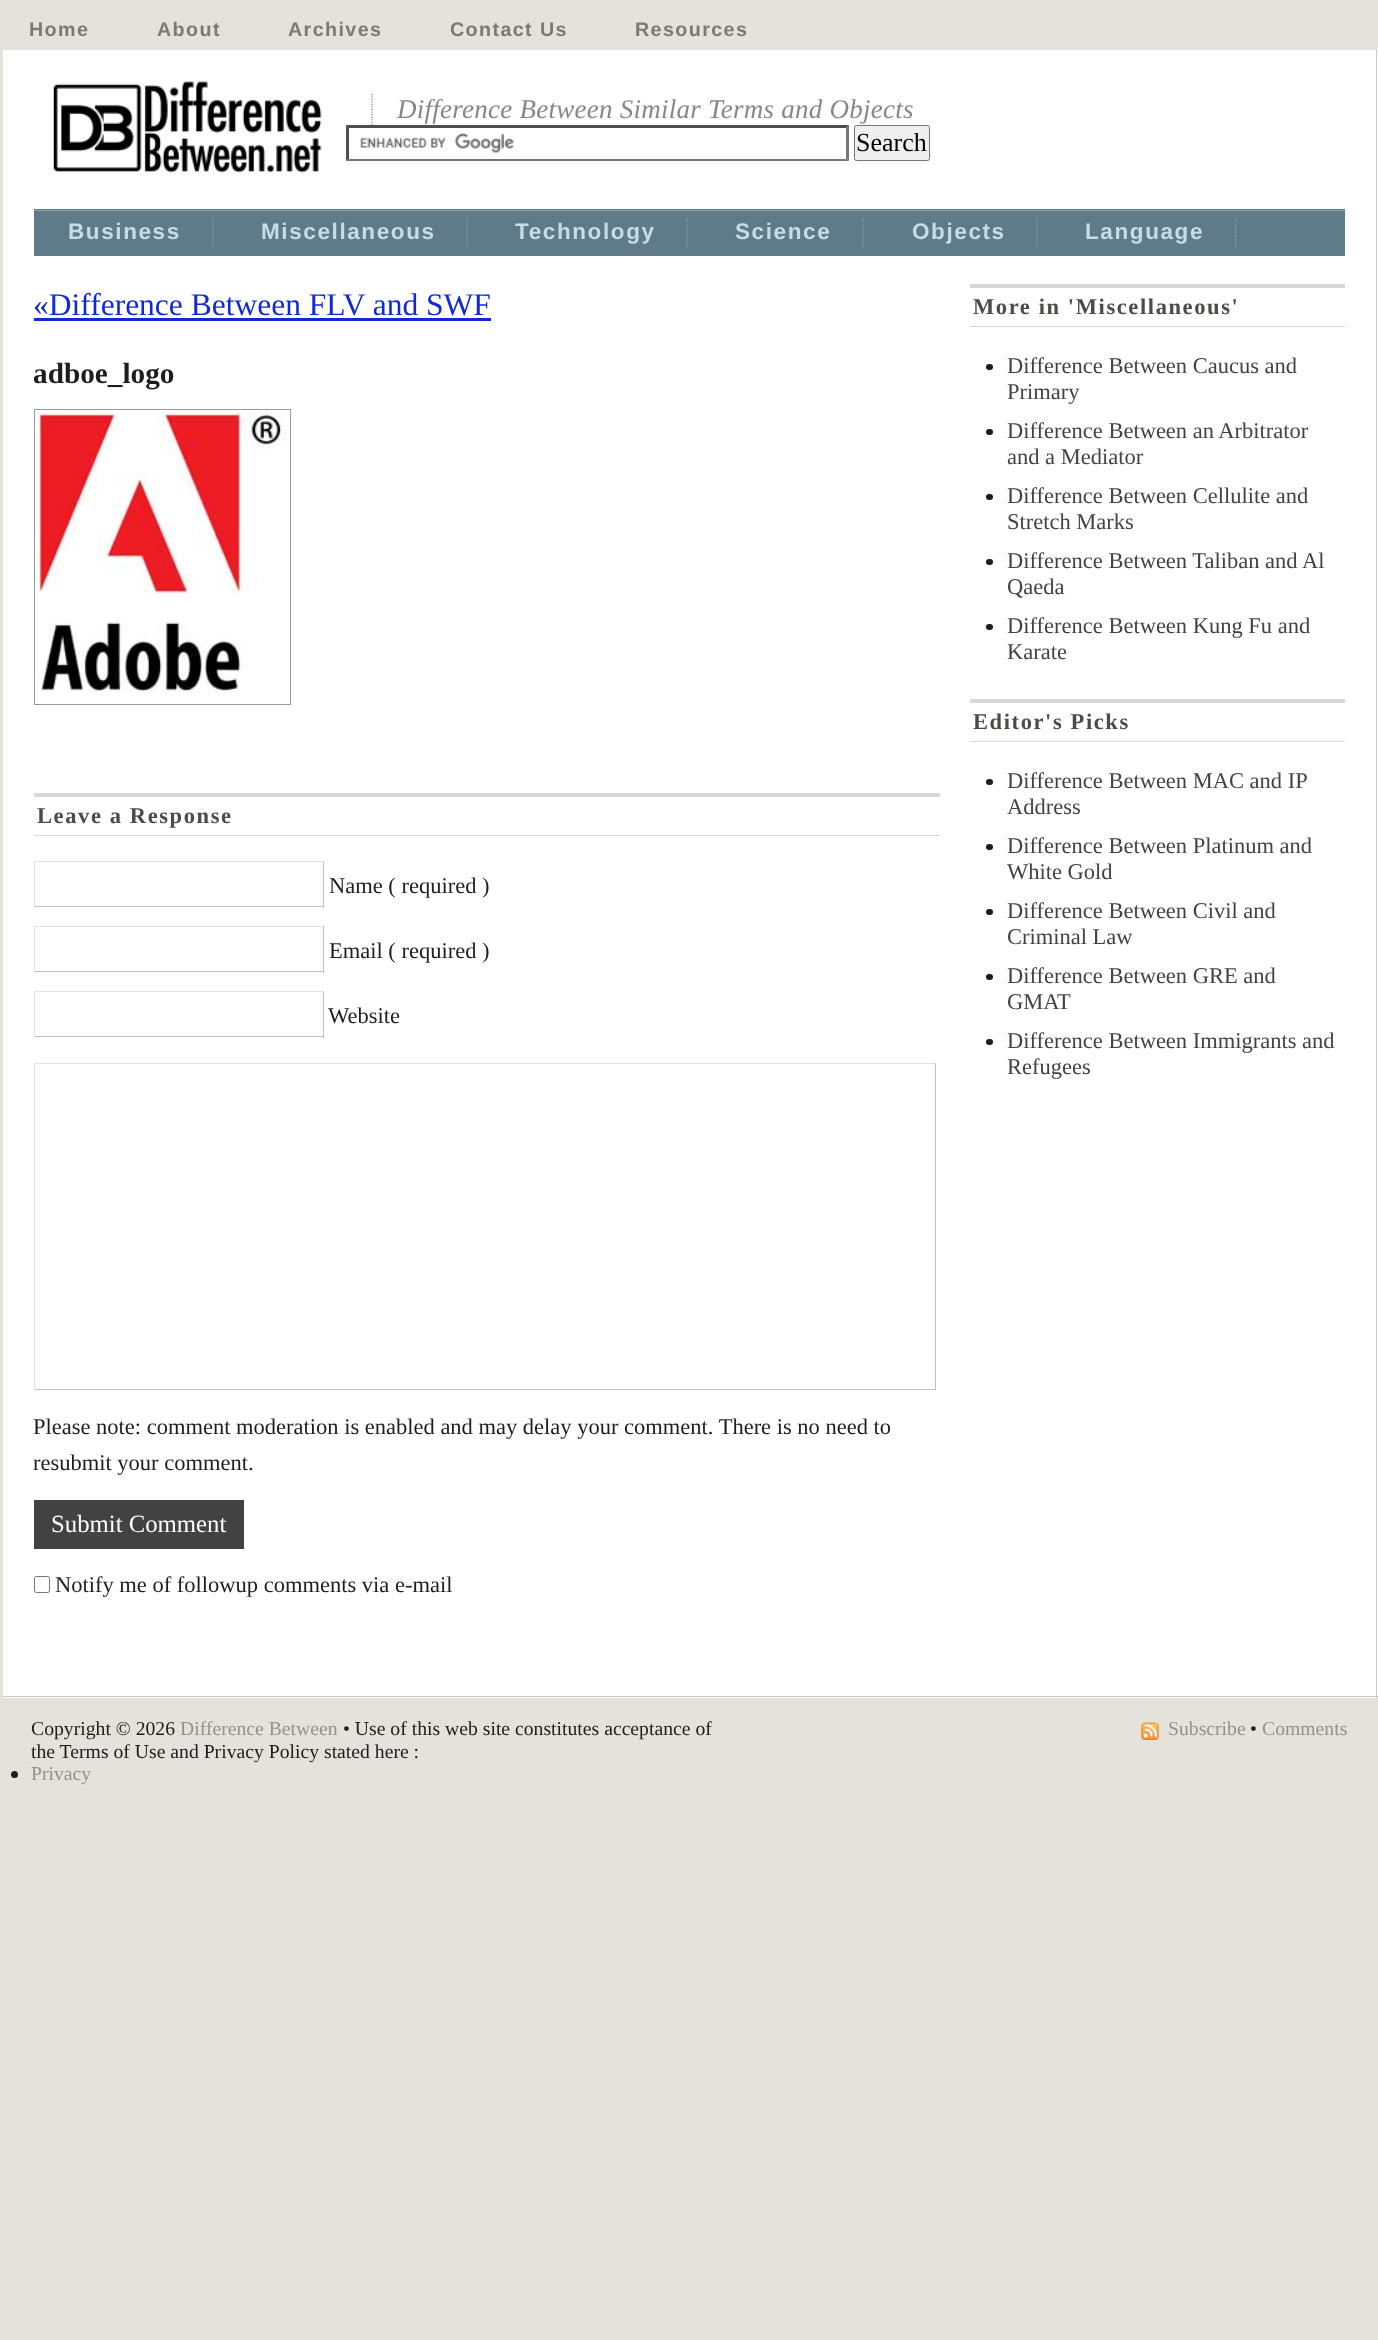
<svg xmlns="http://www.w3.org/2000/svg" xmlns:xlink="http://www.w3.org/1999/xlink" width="1378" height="2340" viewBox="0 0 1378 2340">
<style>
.cls-1{font:bold 19.7px Liberation Sans;letter-spacing:1.4px;fill:#797976}
.cls-2{font:italic 27px Liberation Serif;letter-spacing:0.25px;fill:#888787}
.cls-3{font:26px Liberation Serif;fill:#000000}
.cls-4{font:bold 22.5px Liberation Sans;letter-spacing:1.6px;fill:#c6dce6}
.cls-5{font:31.5px Liberation Serif;fill:#1129d5}
.cls-6{font:bold 29.25px Liberation Serif;fill:#1d1d1d}
.cls-7{font:bold 22.5px Liberation Serif;letter-spacing:1.6px;fill:#4c4b46}
.cls-8{font:22.5px Liberation Serif;fill:#1d1d1d}
.cls-9{font:24.75px Liberation Serif;fill:#ffffff}
.cls-10{font:22.5px Liberation Serif;fill:#424242}
.cls-11{font:19.7px Liberation Serif;fill:#1d1d1d}
.cls-12{font:19.7px Liberation Serif;fill:#94928b}
</style>
<rect width="100%" height="100%" fill="#e4e2db"/>
<rect fill="#ffffff" x="3" y="50" width="1375" height="1648"/>
<rect fill="#cac8c2" x="1376" y="50" width="1" height="1648"/>
<rect fill="#cac8c2" x="3" y="1696" width="1375" height="1"/>
<rect fill="#607b88" x="34" y="209" width="1311" height="1"/>
<image xlink:href="image0.png" x="53" y="81" width="269" height="92"/>
<path fill="none" stroke="#7c7c7c" stroke-width="1.2" stroke-dasharray="1.25 1.25" d="M372 94V125"/>
<image xlink:href="image1.png" x="360" y="133" width="154" height="20"/>
<path fill="#4f4f4f" d="M346 125H849L846 128H349Z"/>
<path fill="#767676" d="M849 125V161L846 159V127.5Z"/>
<path fill="#767676" d="M849 161H346L349 159H846Z"/>
<path fill="#4f4f4f" d="M346 161V125L349 127.5V159Z"/>
<rect fill="#efefef" stroke="#767676" x="854.5" y="125.5" width="75" height="35" rx="2"/>
<rect fill="#607b88" x="34" y="211" width="1311" height="45"/>
<rect fill="#83a8b9" x="34" y="210" width="1311" height="1"/>
<path fill="none" stroke="#83a8b9" stroke-width="1.2" stroke-dasharray="1.25 1.25" d="M213 219V249"/>
<path fill="none" stroke="#83a8b9" stroke-width="1.2" stroke-dasharray="1.25 1.25" d="M467 219V249"/>
<path fill="none" stroke="#83a8b9" stroke-width="1.2" stroke-dasharray="1.25 1.25" d="M687 219V249"/>
<path fill="none" stroke="#83a8b9" stroke-width="1.2" stroke-dasharray="1.25 1.25" d="M863 219V249"/>
<path fill="none" stroke="#83a8b9" stroke-width="1.2" stroke-dasharray="1.25 1.25" d="M1037 219V249"/>
<path fill="none" stroke="#83a8b9" stroke-width="1.2" stroke-dasharray="1.25 1.25" d="M1235.5 219V249"/>
<rect fill="#1129d5" x="34" y="318" width="457" height="3"/>
<rect fill="none" stroke="#999999" x="34.5" y="409.5" width="256" height="295"/>
<image xlink:href="image2.png" x="37" y="412" width="250" height="281"/>
<rect fill="#d7d7d7" x="34" y="793" width="906" height="4"/>
<rect fill="#d7d7d7" x="34" y="835" width="906" height="1"/>
<rect fill="#e2e2e2" x="34" y="861" width="290" height="1"/>
<rect fill="#bfbfbf" x="323" y="861" width="1" height="47"/>
<rect fill="#bfbfbf" x="34" y="906" width="290" height="1"/>
<rect fill="#e2e2e2" x="34" y="861" width="1" height="47"/>
<rect fill="#e2e2e2" x="34" y="926" width="290" height="1"/>
<rect fill="#bfbfbf" x="323" y="926" width="1" height="47"/>
<rect fill="#bfbfbf" x="34" y="971" width="290" height="1"/>
<rect fill="#e2e2e2" x="34" y="926" width="1" height="47"/>
<rect fill="#e2e2e2" x="34" y="991" width="290" height="1"/>
<rect fill="#bfbfbf" x="323" y="991" width="1" height="47"/>
<rect fill="#bfbfbf" x="34" y="1036" width="290" height="1"/>
<rect fill="#e2e2e2" x="34" y="991" width="1" height="47"/>
<rect fill="#e2e2e2" x="34" y="1063" width="902" height="1"/>
<rect fill="#bfbfbf" x="935" y="1063" width="1" height="327"/>
<rect fill="#bfbfbf" x="34" y="1389" width="902" height="1"/>
<rect fill="#e2e2e2" x="34" y="1063" width="1" height="327"/>
<rect fill="#424242" x="34" y="1500" width="210" height="49"/>
<rect fill="none" stroke="#767676" x="34.5" y="1576.5" width="15" height="16" rx="2"/>
<rect fill="#d7d7d7" x="970" y="284" width="375" height="4"/>
<rect fill="#d7d7d7" x="970" y="326" width="375" height="1"/>
<rect fill="#1d1d1d" x="986" y="364" width="7" height="6" rx="3"/>
<rect fill="#1d1d1d" x="986" y="429" width="7" height="6" rx="3"/>
<rect fill="#1d1d1d" x="986" y="494" width="7" height="6" rx="3"/>
<rect fill="#1d1d1d" x="986" y="559" width="7" height="6" rx="3"/>
<rect fill="#1d1d1d" x="986" y="624" width="7" height="6" rx="3"/>
<rect fill="#d7d7d7" x="970" y="699" width="375" height="4"/>
<rect fill="#d7d7d7" x="970" y="741" width="375" height="1"/>
<rect fill="#1d1d1d" x="986" y="779" width="7" height="6" rx="3"/>
<rect fill="#1d1d1d" x="986" y="844" width="7" height="6" rx="3"/>
<rect fill="#1d1d1d" x="986" y="909" width="7" height="6" rx="3"/>
<rect fill="#1d1d1d" x="986" y="974" width="7" height="6" rx="3"/>
<rect fill="#1d1d1d" x="986" y="1039" width="7" height="6" rx="3"/>
<circle fill="#1d1d1d" cx="14.5" cy="1774.5" r="3.5"/>
<image xlink:href="image3.png" x="1141" y="1722" width="18" height="18"/>
<text class="cls-1" x="29" y="36">Home</text>
<text class="cls-1" x="157" y="36">About</text>
<text class="cls-1" x="288" y="36">Archives</text>
<text class="cls-1" x="450" y="36">Contact Us</text>
<text class="cls-1" x="635" y="36">Resources</text>
<text class="cls-2" x="397" y="118">Difference Between Similar Terms and Objects</text>
<text class="cls-3" x="856" y="151">Search</text>
<text class="cls-4" x="68" y="239">Business</text>
<text class="cls-4" x="261" y="239">Miscellaneous</text>
<text class="cls-4" x="515" y="239">Technology</text>
<text class="cls-4" x="735" y="239">Science</text>
<text class="cls-4" x="912" y="239">Objects</text>
<text class="cls-4" x="1085" y="239">Language</text>
<text class="cls-5" x="33" y="315">«Difference Between FLV and SWF</text>
<text class="cls-6" x="33" y="383">adboe_logo</text>
<text class="cls-7" x="37" y="823">Leave a Response</text>
<text class="cls-8" x="329" y="893">Name ( required )</text>
<text class="cls-8" x="329" y="958">Email ( required )</text>
<text class="cls-8" x="328" y="1023">Website</text>
<text class="cls-8"><tspan x="33" y="1434">Please note: comment moderation is enabled and may delay your comment. There is no need to</tspan><tspan x="33" y="1470">resubmit your comment.</tspan></text>
<text class="cls-9" x="51" y="1532">Submit Comment</text>
<text class="cls-8" x="55" y="1592">Notify me of followup comments via e-mail</text>
<text class="cls-7" x="973" y="314">More in 'Miscellaneous'</text>
<text class="cls-10"><tspan x="1007" y="373">Difference Between Caucus and</tspan><tspan x="1007" y="399">Primary</tspan><tspan x="1007" y="438">Difference Between an Arbitrator</tspan><tspan x="1007" y="464">and a Mediator</tspan><tspan x="1007" y="503">Difference Between Cellulite and</tspan><tspan x="1007" y="529">Stretch Marks</tspan><tspan x="1007" y="568">Difference Between Taliban and Al</tspan><tspan x="1007" y="594">Qaeda</tspan><tspan x="1007" y="633">Difference Between Kung Fu and</tspan><tspan x="1007" y="659">Karate</tspan></text>
<text class="cls-7" x="973" y="729">Editor's Picks</text>
<text class="cls-10"><tspan x="1007" y="788">Difference Between MAC and IP</tspan><tspan x="1007" y="814">Address</tspan><tspan x="1007" y="853">Difference Between Platinum and</tspan><tspan x="1007" y="879">White Gold</tspan><tspan x="1007" y="918">Difference Between Civil and</tspan><tspan x="1007" y="944">Criminal Law</tspan><tspan x="1007" y="983">Difference Between GRE and</tspan><tspan x="1007" y="1009">GMAT</tspan><tspan x="1007" y="1048">Difference Between Immigrants and</tspan><tspan x="1007" y="1074">Refugees</tspan></text>
<text class="cls-11" x="31" y="1735">Copyright © 2026</text>
<text class="cls-12" x="180" y="1735">Difference Between</text>
<text class="cls-11" x="343" y="1735">• Use of this web site constitutes acceptance of</text>
<text class="cls-11" x="31" y="1758">the Terms of Use and Privacy Policy stated here :</text>
<text class="cls-12" x="31" y="1780">Privacy</text>
<text class="cls-12" x="1168" y="1735">Subscribe</text>
<text class="cls-11" x="1250" y="1735">•</text>
<text class="cls-12" x="1262" y="1735">Comments</text>
</svg>
